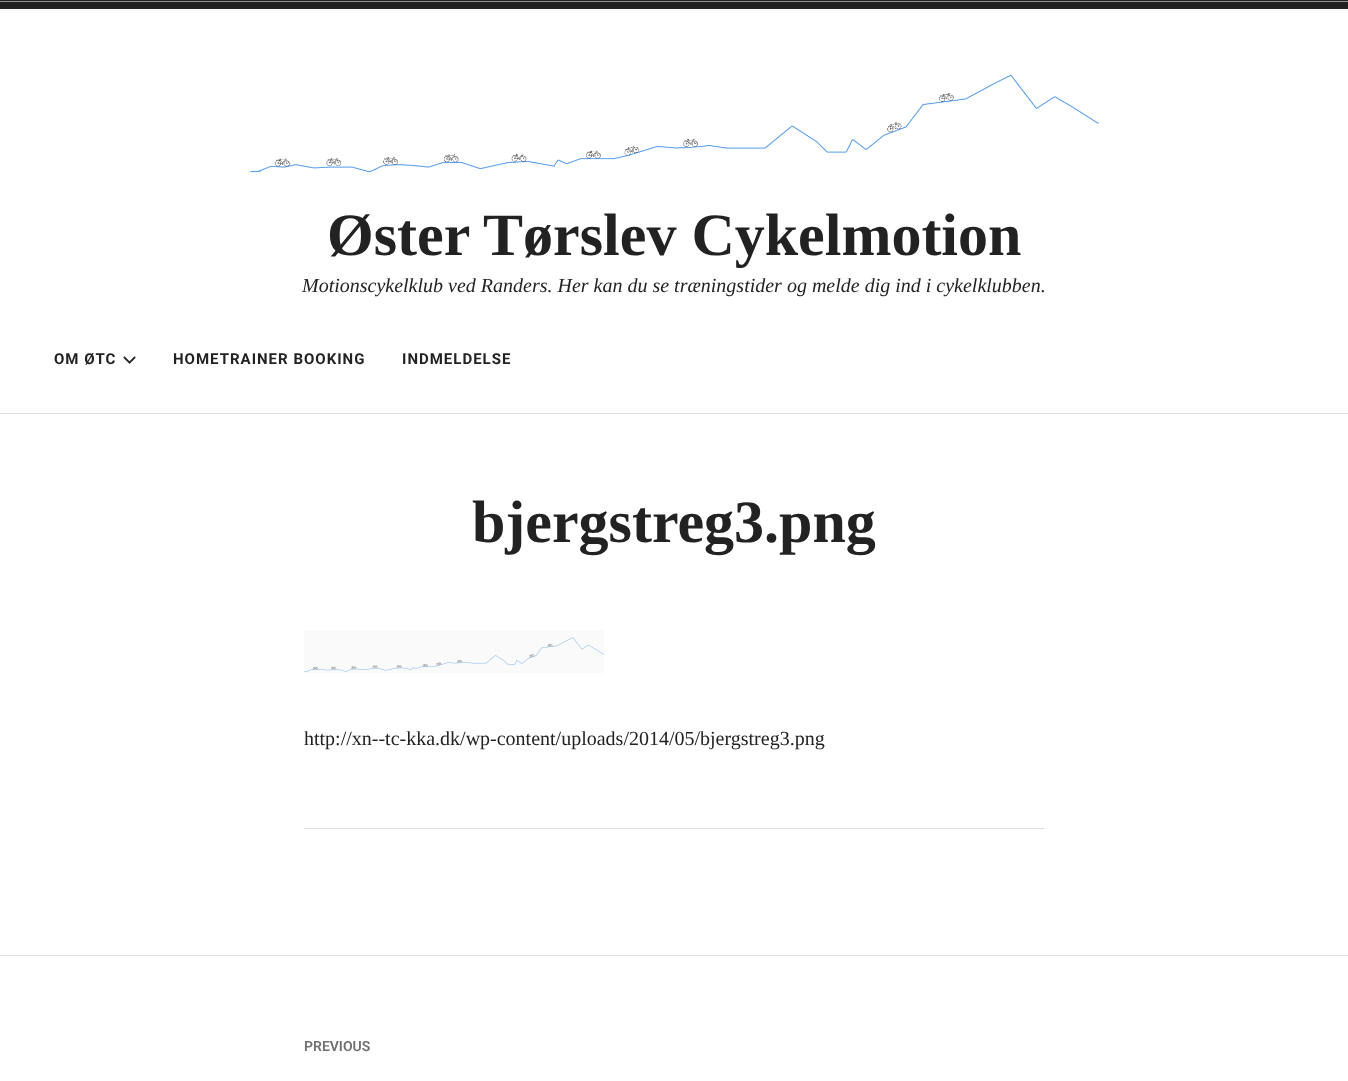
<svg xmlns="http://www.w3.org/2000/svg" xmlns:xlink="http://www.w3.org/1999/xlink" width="1348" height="1081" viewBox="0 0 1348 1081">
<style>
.cls-1{font:bold 60px Liberation Serif;fill:#222222}
.cls-2{font:italic 20px Liberation Serif;fill:#222222}
.cls-3{font:bold 15px Roboto;letter-spacing:1px;fill:#222222}
.cls-4{font:20px Liberation Serif;fill:#222222}
.cls-5{font:600 14px Roboto;fill:#707070}
</style>
<rect width="100%" height="100%" fill="#ffffff"/>
<rect fill="#222222" x="0" y="0" width="1348" height="9"/>
<rect fill="#dddddd" x="0" y="413" width="1348" height="1"/>
<rect fill="#919191" x="0" y="1" width="1348" height="1"/>
<image xlink:href="image0.png" x="250" y="74" width="849" height="99"/>
<image xlink:href="image1.png" x="123" y="356" width="13" height="8"/>
<image xlink:href="image2.png" x="304" y="630" width="300" height="43"/>
<rect fill="#dddddd" x="304" y="828" width="740" height="1"/>
<rect fill="#dddddd" x="0" y="955" width="1348" height="1"/>
<text class="cls-1" x="327" y="255">Øster Tørslev Cykelmotion</text>
<text class="cls-2" x="302" y="292">Motionscykelklub ved Randers. Her kan du se træningstider og melde dig ind i cykelklubben.</text>
<text class="cls-3" x="54" y="364">OM ØTC</text>
<text class="cls-3" x="173" y="364">HOMETRAINER BOOKING</text>
<text class="cls-3" x="402" y="364">INDMELDELSE</text>
<text class="cls-1" x="472" y="542">bjergstreg3.png</text>
<text class="cls-4" x="304" y="745">http://xn--tc-kka.dk/wp-content/uploads/2014/05/bjergstreg3.png</text>
<text class="cls-5" x="304" y="1051">PREVIOUS</text>
</svg>
